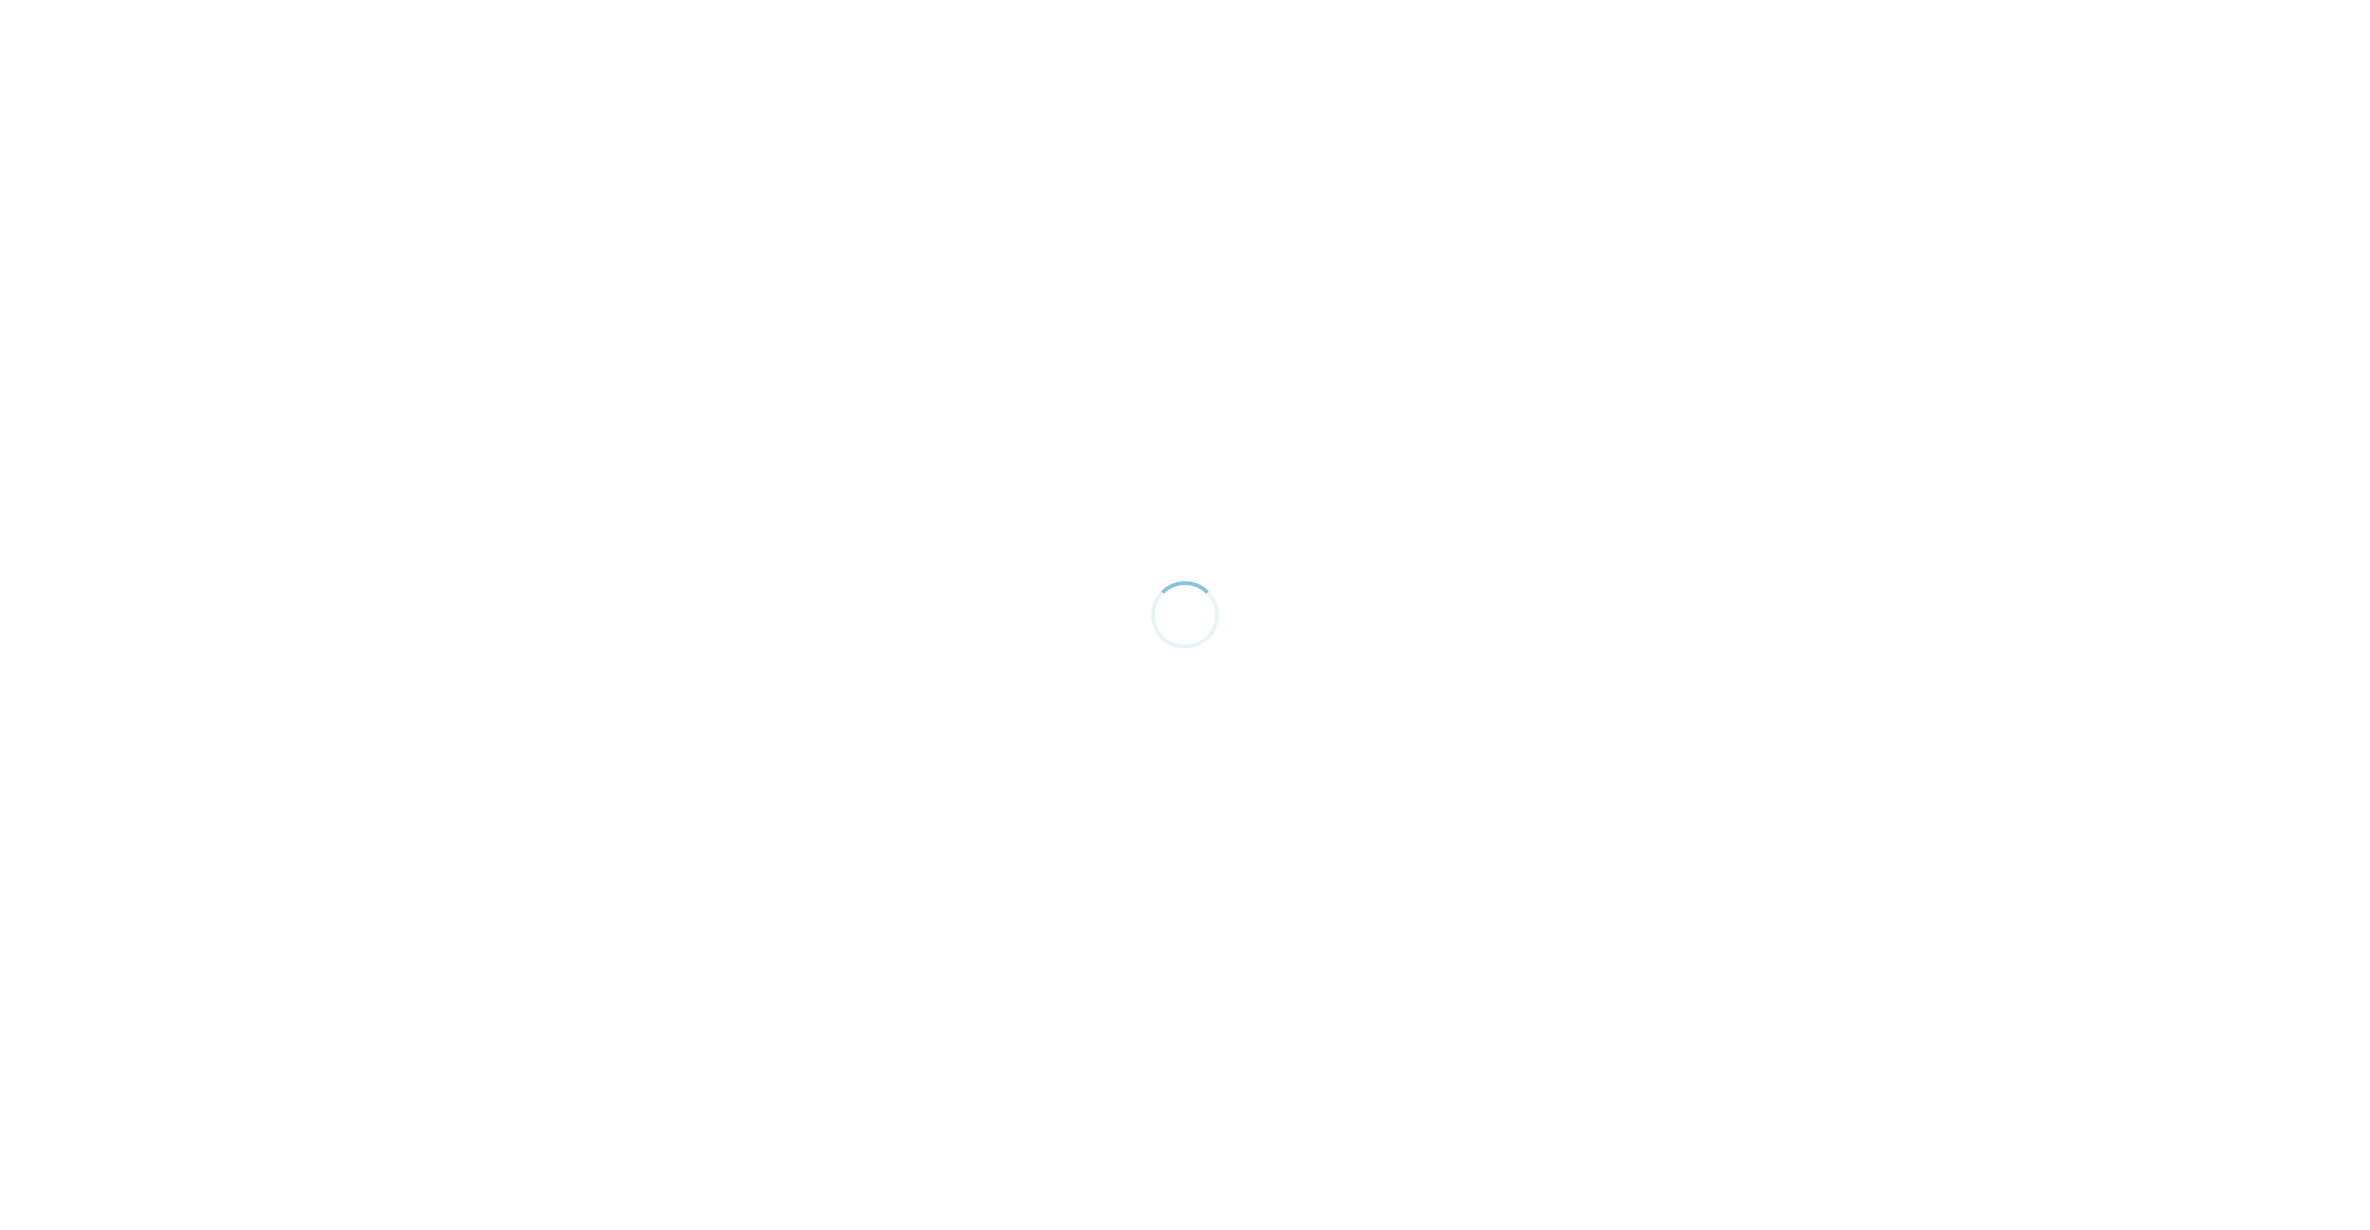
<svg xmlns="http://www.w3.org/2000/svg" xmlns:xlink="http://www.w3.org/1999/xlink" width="2370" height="1230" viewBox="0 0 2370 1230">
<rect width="100%" height="100%" fill="#ffffff"/>
<path fill="none" stroke="#86c3dd" stroke-width="3.8" d="M1162.5 592.5C1174.5 580 1195.5 580 1207.5 592.5"/>
<path fill="none" stroke="#86c3dd" stroke-opacity="0.2" stroke-width="3.8" d="M1207.5 592.5C1213.5 598.5 1217 606.5 1217 615C1217 653 1161 658.5 1153.5 621C1151.5 611 1155 600 1162.5 592.5"/>
</svg>
